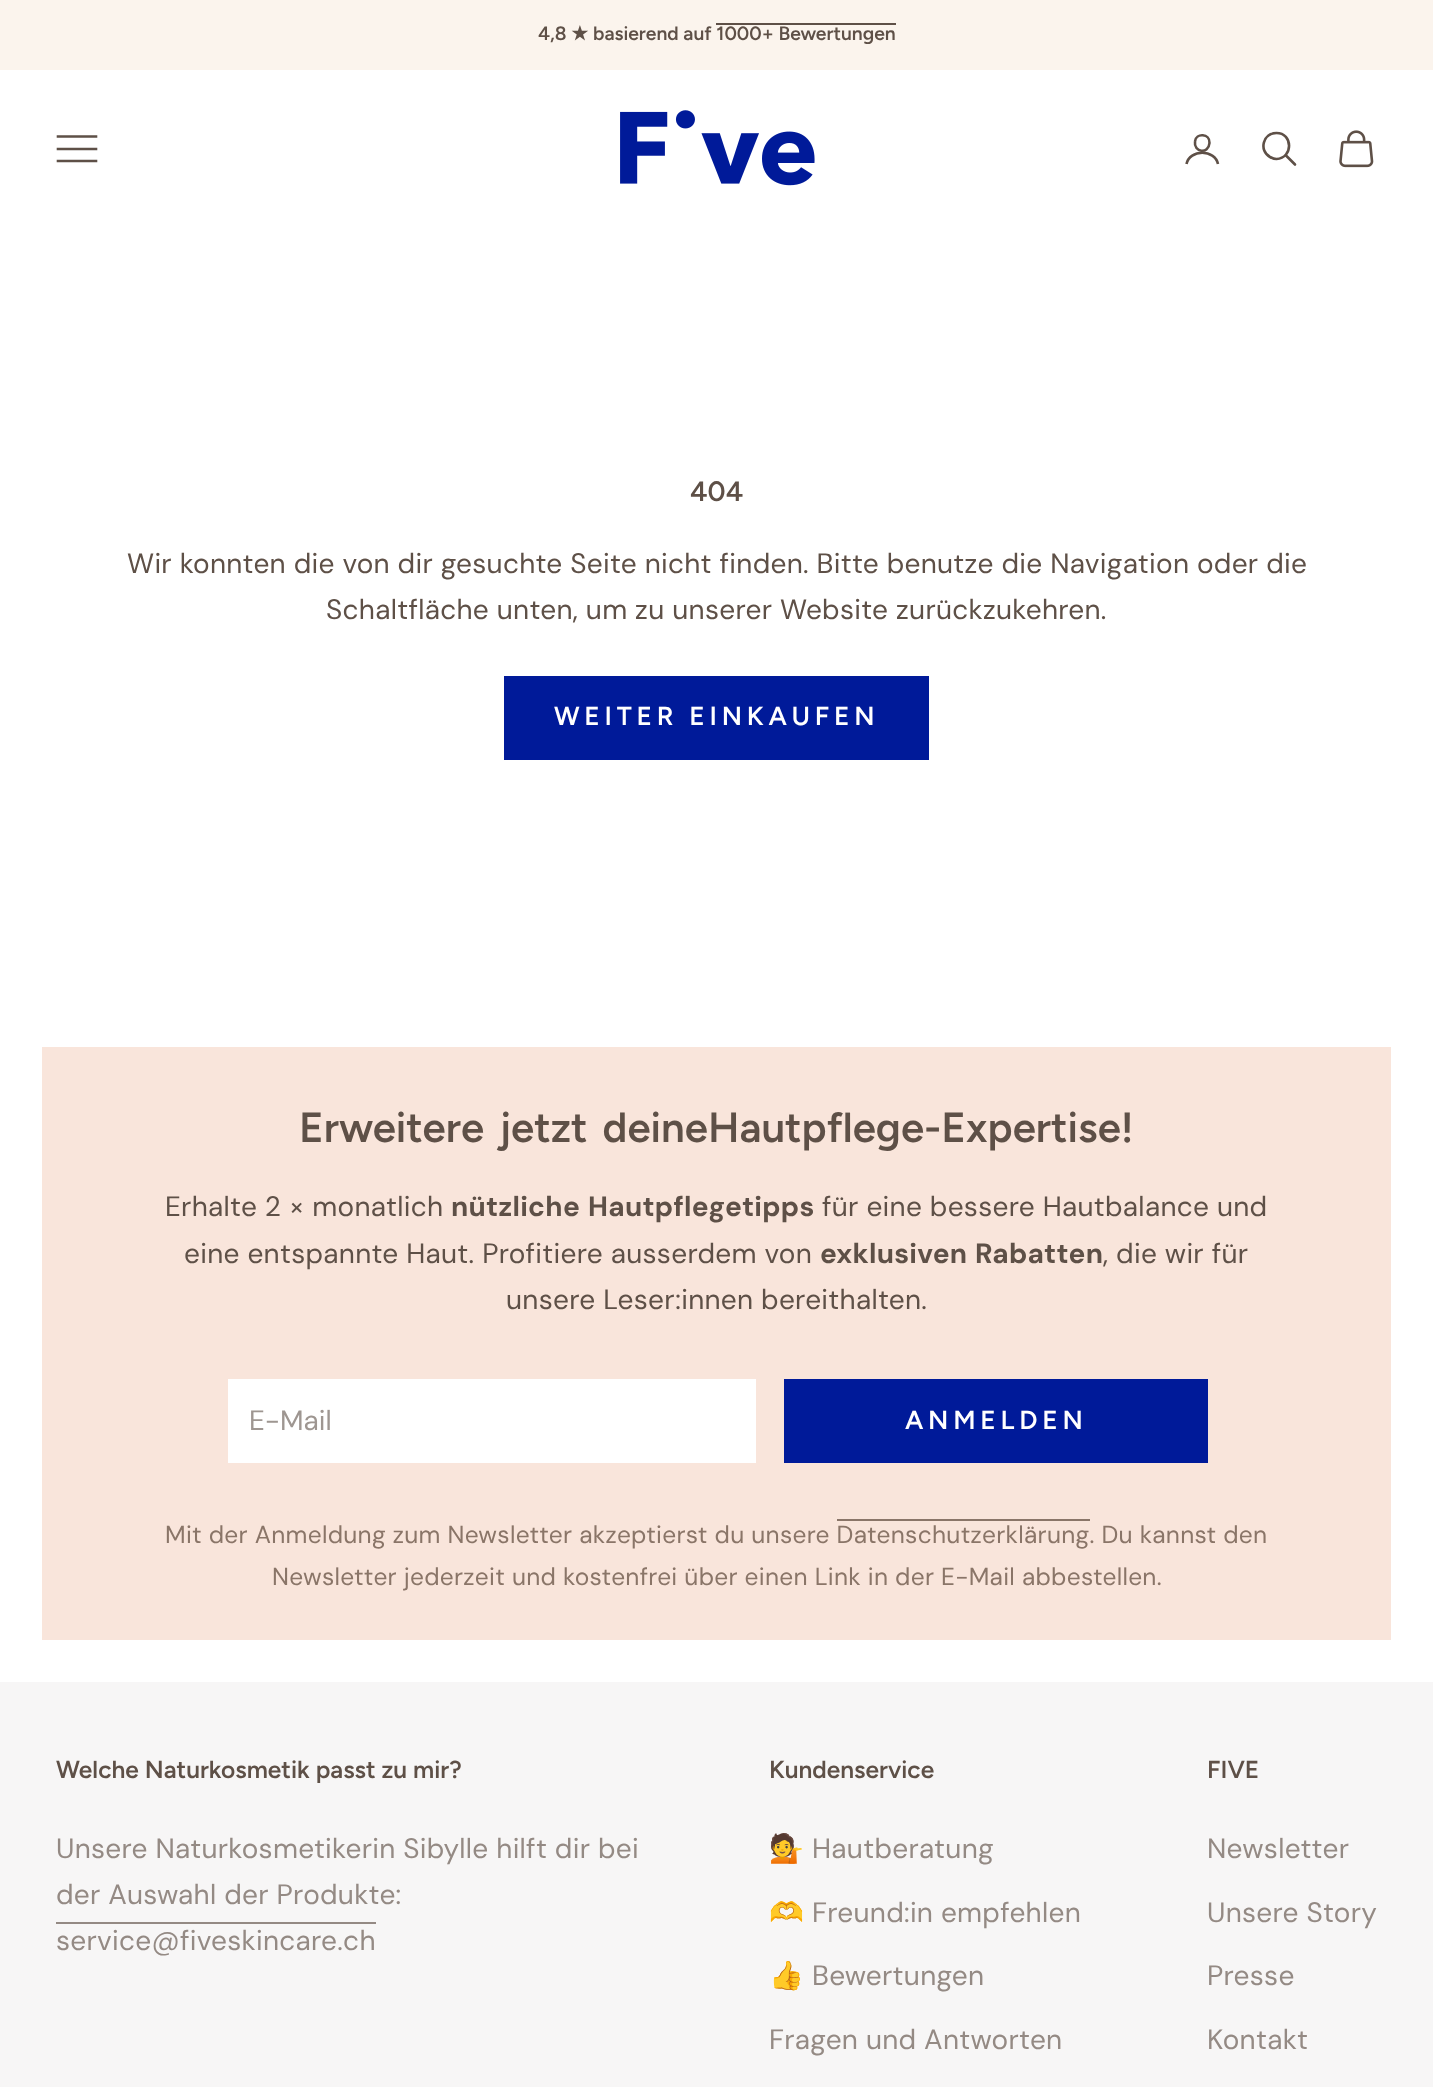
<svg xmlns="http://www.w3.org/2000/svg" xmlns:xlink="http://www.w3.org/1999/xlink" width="1433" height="2087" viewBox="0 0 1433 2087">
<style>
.cls-1{font:600 19.25px Figtree;fill:#5e5047}
.cls-2{font:bold 19.25px DejaVu Sans;fill:#5e5047}
.cls-3{font:600 28px Figtree;fill:#5e5047}
.cls-4{font:28px DM Sans;letter-spacing:0.28px;fill:#5e5047}
.cls-5{font:600 26.25px Figtree;letter-spacing:4.75px;fill:#ffffff}
.cls-6{font:600 42px Figtree;fill:#5e5047}
.cls-7{font:bold 28px DM Sans;letter-spacing:0.28px;fill:#5e5047}
.cls-8{font:28px DM Sans;fill:#9e9691}
.cls-9{font:24.5px 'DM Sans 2';letter-spacing:0.28px;fill:#8a7568}
.cls-10{font:600 24.5px Figtree;fill:#5e5047}
.cls-11{font:28px DM Sans;letter-spacing:0.28px;fill:#948a84}
.cls-12{font:28px Noto Color Emoji;letter-spacing:0.28px;fill:#948a84}
</style>
<rect width="100%" height="100%" fill="#ffffff"/>
<rect fill="#fbf4ed" x="0" y="0" width="1433" height="70"/>
<rect fill="#5e5047" x="716" y="23" width="180" height="2"/>
<path fill="none" stroke="#5e5047" stroke-width="2.6" stroke-linecap="square" d="M58 161H96M58 149H96M58 136.5H96"/>
<image xlink:href="image0.png" x="620" y="110" width="195" height="76"/>
<path fill="none" stroke="#5e5047" stroke-width="2.6" stroke-linecap="round" stroke-linejoin="round" d="M1209.5 143C1208.5 154.5 1193.5 152.5 1195 141.5C1196 132.5 1210 133.5 1209.5 143Z"/>
<path fill="none" stroke="#5e5047" stroke-width="2.6" d="M1186.5 164C1189.5 149 1215 149 1218 164"/>
<path fill="none" stroke="#5e5047" stroke-width="2.6" d="M1276.5 133C1263 133 1258.5 150.5 1270 157C1272 158 1274 159 1276.5 159C1293.5 158 1293 133 1276.5 133Z"/>
<path fill="none" stroke="#5e5047" stroke-width="2.6" stroke-linecap="round" d="M1286 155.5L1295 164.5"/>
<image xlink:href="image1.png" x="1339" y="130" width="35" height="38"/>
<rect fill="#001a99" stroke="#001a99" stroke-width="2" x="505" y="677" width="423" height="82"/>
<rect fill="#f9e5db" x="42" y="1047" width="1349" height="593"/>
<rect fill="#ffffff" x="228" y="1379" width="528" height="84"/>
<rect fill="#001a99" stroke="#001a99" stroke-width="2" x="785" y="1380" width="422" height="82"/>
<rect fill="#8a7568" x="837" y="1519" width="253" height="2"/>
<rect fill="#f7f6f6" x="0" y="1682" width="1433" height="405"/>
<rect fill="#948a84" x="56" y="1922" width="320" height="2"/>
<text class="cls-1" x="538" y="40">4,8</text>
<text class="cls-2" x="571" y="40">★</text>
<text class="cls-1" x="593" y="40">basierend auf 1000+ Bewertungen</text>
<text class="cls-3" x="690" y="501">404</text>
<text class="cls-4" x="127" y="573">Wir konnten die von dir gesuchte Seite nicht finden. Bitte benutze die Navigation oder die</text>
<text class="cls-4" x="326" y="619">Schaltfläche unten, um zu unserer Website zurückzukehren.</text>
<text class="cls-5" x="554" y="725">WEITER EINKAUFEN</text>
<text class="cls-6" x="299" y="1142" word-spacing="5">Erweitere jetzt deineHautpflege-Expertise!</text>
<text class="cls-4" x="165" y="1216">Erhalte 2 × monatlich</text>
<text class="cls-7" x="451" y="1216">nützliche</text>
<text class="cls-7" x="588" y="1216">Hautpflegetipps</text>
<text class="cls-4" x="822" y="1216">für eine bessere Hautbalance und</text>
<text class="cls-4" x="184" y="1263">eine entspannte Haut. Profitiere ausserdem von</text>
<text class="cls-7" x="820" y="1263">exklusiven</text>
<text class="cls-7" x="975" y="1263">Rabatten</text>
<text class="cls-4" x="1103" y="1263">, die wir für</text>
<text class="cls-4" x="506" y="1309">unsere Leser:innen bereithalten.</text>
<text class="cls-8" x="249" y="1430">E-Mail</text>
<text class="cls-5" x="905" y="1429">ANMELDEN</text>
<text class="cls-9" x="165" y="1543">Mit der Anmeldung zum Newsletter akzeptierst du unsere Datenschutzerklärung. Du kannst den</text>
<text class="cls-9" x="272" y="1585">Newsletter jederzeit und kostenfrei über einen Link in der E-Mail abbestellen.</text>
<text class="cls-10" x="56" y="1778">Welche Naturkosmetik passt zu mir?</text>
<text class="cls-11"><tspan x="56" y="1858">Unsere Naturkosmetikerin Sibylle hilft dir bei</tspan><tspan x="56" y="1904">der Auswahl der Produkte:</tspan><tspan x="56" y="1950">service@fiveskincare.ch</tspan></text>
<text class="cls-10" x="769" y="1778">Kundenservice</text>
<text class="cls-12" x="769" y="1858">💁</text>
<text class="cls-11" x="812" y="1858">Hautberatung</text>
<text class="cls-12" x="769" y="1922">🫶</text>
<text class="cls-11" x="812" y="1922">Freund:in empfehlen</text>
<text class="cls-12" x="769" y="1985">👍</text>
<text class="cls-11" x="812" y="1985">Bewertungen</text>
<text class="cls-11" x="769" y="2049">Fragen und Antworten</text>
<text class="cls-10" x="1207" y="1778">FIVE</text>
<text class="cls-11" x="1207" y="1858">Newsletter</text>
<text class="cls-11" x="1207" y="1922">Unsere Story</text>
<text class="cls-11" x="1207" y="1985">Presse</text>
<text class="cls-11" x="1207" y="2049">Kontakt</text>
</svg>
